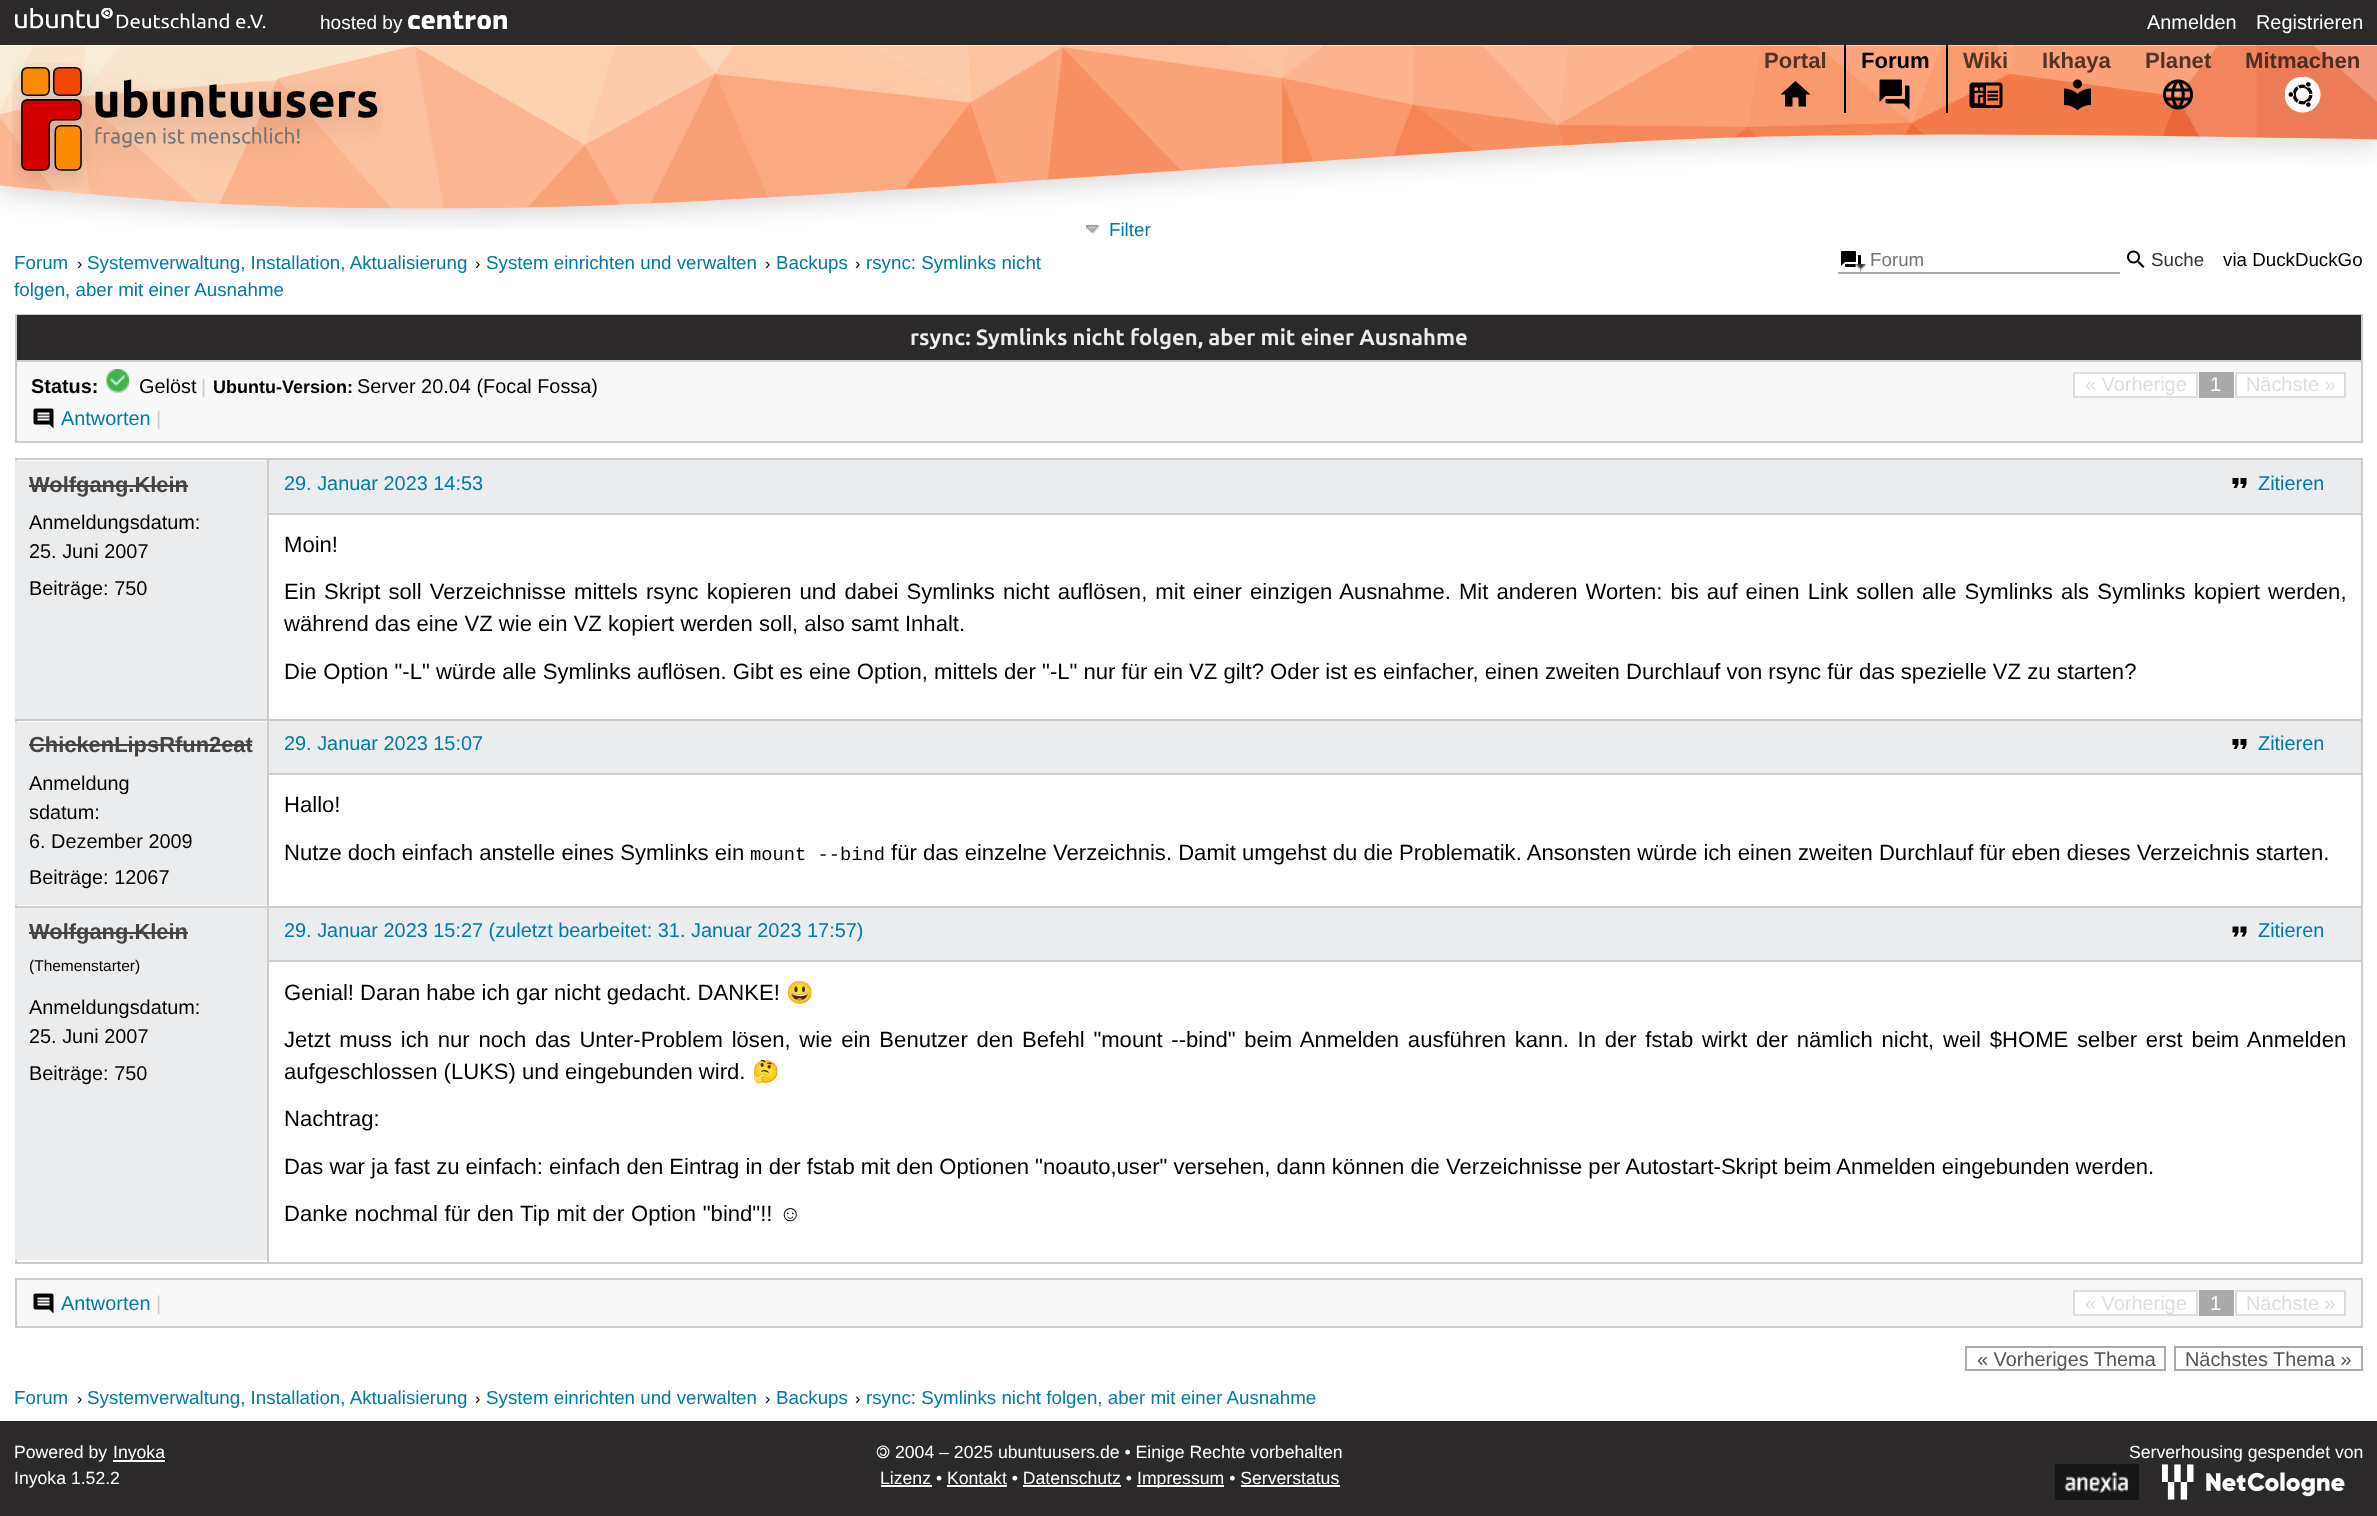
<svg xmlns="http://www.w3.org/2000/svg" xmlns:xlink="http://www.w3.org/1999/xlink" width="2377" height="1516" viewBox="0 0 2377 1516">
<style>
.cls-1{font:19px Liberation Sans;fill:#ffffff}
.cls-2{font:19.9px Liberation Sans;fill:#ffffff}
.cls-3{font:bold 22.08px Liberation Sans;fill:#523324}
.cls-4{font:bold 22.08px Liberation Sans;fill:#000000}
.cls-5{font:bold 22.08px Liberation Sans;fill:#4f2c20}
.cls-6{font:18.75px Liberation Sans;fill:#007aa6}
.cls-7{font:16px Liberation Sans;fill:#000000}
.cls-8{font:18.75px Liberation Sans;fill:#757575}
.cls-9{font:18.75px Liberation Sans;fill:#333333}
.cls-10{font:18.75px Liberation Sans;fill:#000000}
.cls-11{font:bold 22.08px Ubuntu;fill:#eaecee}
.cls-12{font:bold 19.9px Liberation Sans;fill:#000000}
.cls-13{font:19.9px Liberation Sans;fill:#000000}
.cls-14{font:19.9px Liberation Sans;fill:#cccccc}
.cls-15{font:bold 18px Liberation Sans;fill:#000000}
.cls-16{font:19.9px Liberation Sans;fill:#dddddd}
.cls-17{font:19.9px Liberation Sans;fill:#007aa6}
.cls-18{font:bold 21.9px Liberation Sans;fill:#444444}
.cls-19{font:22.08px Liberation Sans;fill:#000000}
.cls-20{font:18.75px Liberation Mono;fill:#000000}
.cls-21{font:15.5px Liberation Sans;fill:#000000}
.cls-22{font:22.08px Noto Color Emoji;fill:#000000}
.cls-23{font:19.9px Liberation Sans;fill:#555555}
.cls-24{font:17.65px Liberation Sans;fill:#ffffff}
.cls-25{font:17.65px FreeSans;fill:#ffffff}
</style>
<rect width="100%" height="100%" fill="#ffffff"/>
<rect fill="#2b2929" x="0" y="0" width="2377" height="45"/>
<image xlink:href="image0.png" x="15" y="8" width="251" height="21"/>
<image xlink:href="image1.png" x="408" y="11" width="99" height="18"/>
<image xlink:href="image2.png" x="0" y="45" width="2377" height="184"/>
<image xlink:href="image3.png" x="12" y="63" width="371" height="126"/>
<path fill="#000000" d="M1792.5 106.5V97.5H1798.5V106.5H1806V94.5H1810.5L1795.5 81L1780.5 94.5H1785V106.5Z"/>
<rect fill="#000000" x="1946" y="45" width="2" height="68"/>
<rect fill="#000000" x="1844" y="45" width="2" height="68"/>
<image xlink:href="image4.png" x="1879" y="79" width="31" height="31"/>
<image xlink:href="image5.png" x="1969" y="82" width="34" height="26"/>
<image xlink:href="image6.png" x="2064" y="79" width="27" height="32"/>
<image xlink:href="image7.png" x="2163" y="79" width="30" height="31"/>
<image xlink:href="image8.png" x="2285" y="77" width="36" height="36"/>
<image xlink:href="image9.png" x="1086" y="225" width="14" height="9"/>
<image xlink:href="image11.png" x="1841" y="251" width="20" height="20"/>
<image xlink:href="image10.png" x="1855" y="264" width="11" height="6"/>
<rect fill="#aaaaaa" x="1838" y="272" width="282" height="2"/>
<image xlink:href="image12.png" x="2127" y="250" width="18" height="18"/>
<rect fill="#f8f8f8" x="17" y="362" width="2344" height="79"/>
<rect fill="none" stroke="#cccccc" stroke-width="2" x="16" y="315" width="2346" height="127"/>
<rect fill="#2b2929" x="17" y="315" width="2344" height="45"/>
<rect fill="#cccccc" x="17" y="360" width="2344" height="2"/>
<image xlink:href="image13.png" x="106" y="369" width="23" height="24"/>
<rect fill="#ffffff" stroke="#dddddd" stroke-width="2" x="2074" y="373" width="123" height="24"/>
<rect fill="#aaaaaa" x="2199" y="372" width="35" height="26"/>
<rect fill="#ffffff" stroke="#dddddd" stroke-width="2" x="2236" y="373" width="109" height="24"/>
<image xlink:href="image14.png" x="33" y="408" width="21" height="21"/>
<rect fill="#cccccc" x="15" y="458" width="2348" height="2"/>
<rect fill="#cccccc" x="2361" y="458" width="2" height="805"/>
<rect fill="#cccccc" x="15" y="1262" width="2348" height="2"/>
<rect fill="#cccccc" x="15" y="458" width="2" height="805"/>
<rect fill="#eaecee" x="15" y="461" width="252" height="258"/>
<rect fill="#444444" x="29" y="485" width="159" height="2"/>
<rect fill="#eaecee" x="269" y="460" width="2092" height="53"/>
<rect fill="#cccccc" x="269" y="513" width="2092" height="2"/>
<image xlink:href="image15.png" x="2232" y="478" width="15" height="10"/>
<rect fill="#cccccc" x="15" y="719" width="2348" height="2"/>
<rect fill="#cccccc" x="15" y="906" width="2348" height="2"/>
<rect fill="#cccccc" x="267" y="906" width="2" height="357"/>
<rect fill="#cccccc" x="267" y="458" width="2" height="450"/>
<rect fill="#eaecee" x="15" y="722" width="252" height="183"/>
<rect fill="#444444" x="29" y="744" width="223" height="2"/>
<rect fill="#eaecee" x="269" y="721" width="2092" height="52"/>
<rect fill="#cccccc" x="269" y="773" width="2092" height="2"/>
<image xlink:href="image15.png" x="2232" y="739" width="15" height="10"/>
<rect fill="#eaecee" x="15" y="908" width="252" height="352"/>
<rect fill="#444444" x="29" y="932" width="159" height="2"/>
<rect fill="#eaecee" x="269" y="908" width="2092" height="52"/>
<rect fill="#cccccc" x="269" y="960" width="2092" height="2"/>
<image xlink:href="image16.png" x="2232" y="926" width="15" height="11"/>
<rect fill="#f8f8f8" stroke="#cccccc" stroke-width="2" x="16" y="1279" width="2346" height="48"/>
<image xlink:href="image14.png" x="33" y="1293" width="21" height="21"/>
<rect fill="#ffffff" stroke="#dddddd" stroke-width="2" x="2074" y="1291" width="123" height="24"/>
<rect fill="#aaaaaa" x="2199" y="1290" width="35" height="26"/>
<rect fill="#ffffff" stroke="#dddddd" stroke-width="2" x="2236" y="1291" width="109" height="24"/>
<rect fill="none" stroke="#aaaaaa" stroke-width="2" x="1966" y="1347" width="199" height="23"/>
<rect fill="none" stroke="#aaaaaa" stroke-width="2" x="2175" y="1347" width="187" height="23"/>
<rect fill="#2b2929" x="0" y="1421" width="2377" height="95"/>
<rect fill="#ffffff" x="113" y="1460" width="52" height="2"/>
<rect fill="#ffffff" x="881" y="1485" width="51" height="2"/>
<rect fill="#ffffff" x="1137" y="1485" width="87" height="2"/>
<rect fill="#ffffff" x="947" y="1485" width="60" height="2"/>
<rect fill="#ffffff" x="1023" y="1485" width="98" height="2"/>
<rect fill="#ffffff" x="1241" y="1485" width="99" height="2"/>
<rect fill="#ffffff" x="2064" y="1471" width="64" height="23"/>
<image xlink:href="image17.png" x="2055" y="1464" width="84" height="36"/>
<image xlink:href="image18.png" x="2162" y="1464" width="183" height="36"/>
<text class="cls-1" x="320" y="29">hosted by</text>
<text class="cls-2" x="2147" y="29">Anmelden</text>
<text class="cls-2" x="2256" y="29">Registrieren</text>
<text class="cls-3" x="1764" y="68">Portal</text>
<text class="cls-4" x="1861" y="68">Forum</text>
<text class="cls-3" x="1963" y="68">Wiki</text>
<text class="cls-3" x="2042" y="68">Ikhaya</text>
<text class="cls-3" x="2145" y="68">Planet</text>
<text class="cls-5" x="2245" y="68">Mitmachen</text>
<text class="cls-6" x="1109" y="236">Filter</text>
<text class="cls-6" x="14" y="269">Forum</text>
<text class="cls-7" x="77" y="269">›</text>
<text class="cls-6" x="87" y="269">Systemverwaltung, Installation, Aktualisierung</text>
<text class="cls-7" x="475" y="269">›</text>
<text class="cls-6" x="486" y="269">System einrichten und verwalten</text>
<text class="cls-7" x="765" y="269">›</text>
<text class="cls-6" x="776" y="269">Backups</text>
<text class="cls-7" x="855" y="269">›</text>
<text class="cls-6" x="866" y="269">rsync: Symlinks nicht</text>
<text class="cls-6" x="14" y="296">folgen, aber mit einer Ausnahme</text>
<text class="cls-8" x="1870" y="266">Forum</text>
<text class="cls-9" x="2151" y="266">Suche</text>
<text class="cls-10" x="2223" y="266">via DuckDuckGo</text>
<text class="cls-11" x="910" y="345">rsync: Symlinks nicht folgen, aber mit einer Ausnahme</text>
<text class="cls-12" x="31" y="393">Status:</text>
<text class="cls-13" x="139" y="393">Gelöst</text>
<text class="cls-14" x="201" y="393">|</text>
<text class="cls-15" x="213" y="393">Ubuntu-Version:</text>
<text class="cls-13" x="357" y="393">Server 20.04 (Focal Fossa)</text>
<text class="cls-16" x="2085" y="391">« Vorherige</text>
<text class="cls-2" x="2210" y="391">1</text>
<text class="cls-16" x="2246" y="391">Nächste »</text>
<text class="cls-17" x="61" y="425">Antworten</text>
<text class="cls-14" x="156" y="425">|</text>
<text class="cls-18" x="29" y="492">Wolfgang.Klein</text>
<text class="cls-13"><tspan x="29" y="529">Anmeldungsdatum:</tspan><tspan x="29" y="558">25. Juni 2007</tspan><tspan x="29" y="595">Beiträge: 750</tspan></text>
<text class="cls-17" x="284" y="490">29. Januar 2023 14:53</text>
<text class="cls-17" x="2258" y="490">Zitieren</text>
<text class="cls-19" x="284" y="552">Moin!</text>
<text class="cls-19"><tspan x="284" y="599" word-spacing="1.95">Ein Skript soll Verzeichnisse mittels rsync kopieren und dabei Symlinks nicht auflösen, mit einer einzigen Ausnahme. Mit anderen Worten: bis auf einen Link sollen alle Symlinks als Symlinks kopiert werden,</tspan><tspan x="284" y="631">während das eine VZ wie ein VZ kopiert werden soll, also samt Inhalt.</tspan></text>
<text class="cls-19" x="284" y="679">Die Option "-L" würde alle Symlinks auflösen. Gibt es eine Option, mittels der "-L" nur für ein VZ gilt? Oder ist es einfacher, einen zweiten Durchlauf von rsync für das spezielle VZ zu starten?</text>
<text class="cls-18" x="29" y="752">ChickenLipsRfun2eat</text>
<text class="cls-13"><tspan x="29" y="790">Anmeldung</tspan><tspan x="29" y="819">sdatum:</tspan><tspan x="29" y="848">6. Dezember 2009</tspan><tspan x="29" y="884">Beiträge: 12067</tspan></text>
<text class="cls-17" x="284" y="750">29. Januar 2023 15:07</text>
<text class="cls-17" x="2258" y="750">Zitieren</text>
<text class="cls-19" x="284" y="812">Hallo!</text>
<text class="cls-19" x="284" y="860">Nutze doch einfach anstelle eines Symlinks ein</text>
<text class="cls-20" x="750" y="860">mount --bind</text>
<text class="cls-19" x="891" y="860">für das einzelne Verzeichnis. Damit umgehst du die Problematik. Ansonsten würde ich einen zweiten Durchlauf für eben dieses Verzeichnis starten.</text>
<text class="cls-18" x="29" y="939">Wolfgang.Klein</text>
<text class="cls-21" x="29" y="971">(Themenstarter)</text>
<text class="cls-13"><tspan x="29" y="1014">Anmeldungsdatum:</tspan><tspan x="29" y="1043">25. Juni 2007</tspan><tspan x="29" y="1080">Beiträge: 750</tspan></text>
<text class="cls-17" x="284" y="937">29. Januar 2023 15:27 (zuletzt bearbeitet: 31. Januar 2023 17:57)</text>
<text class="cls-17" x="2258" y="937">Zitieren</text>
<text class="cls-19" x="284" y="1000">Genial! Daran habe ich gar nicht gedacht. DANKE!</text>
<text class="cls-22" x="786" y="1000">😃</text>
<text class="cls-19"><tspan x="284" y="1047" word-spacing="2.6">Jetzt muss ich nur noch das Unter-Problem lösen, wie ein Benutzer den Befehl "mount --bind" beim Anmelden ausführen kann. In der fstab wirkt der nämlich nicht, weil $HOME selber erst beim Anmelden</tspan><tspan x="284" y="1079">aufgeschlossen (LUKS) und eingebunden wird.</tspan></text>
<text class="cls-22" x="752" y="1079">🤔</text>
<text class="cls-19" x="284" y="1126">Nachtrag:</text>
<text class="cls-19" x="284" y="1174">Das war ja fast zu einfach: einfach den Eintrag in der fstab mit den Optionen "noauto,user" versehen, dann können die Verzeichnisse per Autostart-Skript beim Anmelden eingebunden werden.</text>
<text class="cls-19" x="284" y="1221" word-spacing="0.5">Danke nochmal für den Tip mit der Option "bind"!! ☺</text>
<text class="cls-17" x="61" y="1310">Antworten</text>
<text class="cls-14" x="156" y="1310">|</text>
<text class="cls-16" x="2085" y="1310">« Vorherige</text>
<text class="cls-2" x="2210" y="1310">1</text>
<text class="cls-16" x="2246" y="1310">Nächste »</text>
<text class="cls-23" x="1977" y="1366">« Vorheriges Thema</text>
<text class="cls-23" x="2185" y="1366">Nächstes Thema »</text>
<text class="cls-6" x="14" y="1404">Forum</text>
<text class="cls-7" x="77" y="1404">›</text>
<text class="cls-6" x="87" y="1404">Systemverwaltung, Installation, Aktualisierung</text>
<text class="cls-7" x="475" y="1404">›</text>
<text class="cls-6" x="486" y="1404">System einrichten und verwalten</text>
<text class="cls-7" x="765" y="1404">›</text>
<text class="cls-6" x="776" y="1404">Backups</text>
<text class="cls-7" x="855" y="1404">›</text>
<text class="cls-6" x="866" y="1404">rsync: Symlinks nicht folgen, aber mit einer Ausnahme</text>
<text class="cls-24" x="14" y="1458">Powered by</text>
<text class="cls-24" x="113" y="1458">Inyoka</text>
<text class="cls-24" x="14" y="1484">Inyoka 1.52.2</text>
<text class="cls-25" x="876" y="1458">🄯</text>
<text class="cls-24" x="895" y="1458">2004 – 2025 ubuntuusers.de • Einige Rechte vorbehalten</text>
<text class="cls-24" x="880" y="1484">Lizenz • Kontakt • Datenschutz •</text>
<text class="cls-24" x="1137" y="1484">Impressum • Serverstatus</text>
<text class="cls-24" x="2129" y="1458">Serverhousing gespendet von</text>
</svg>
